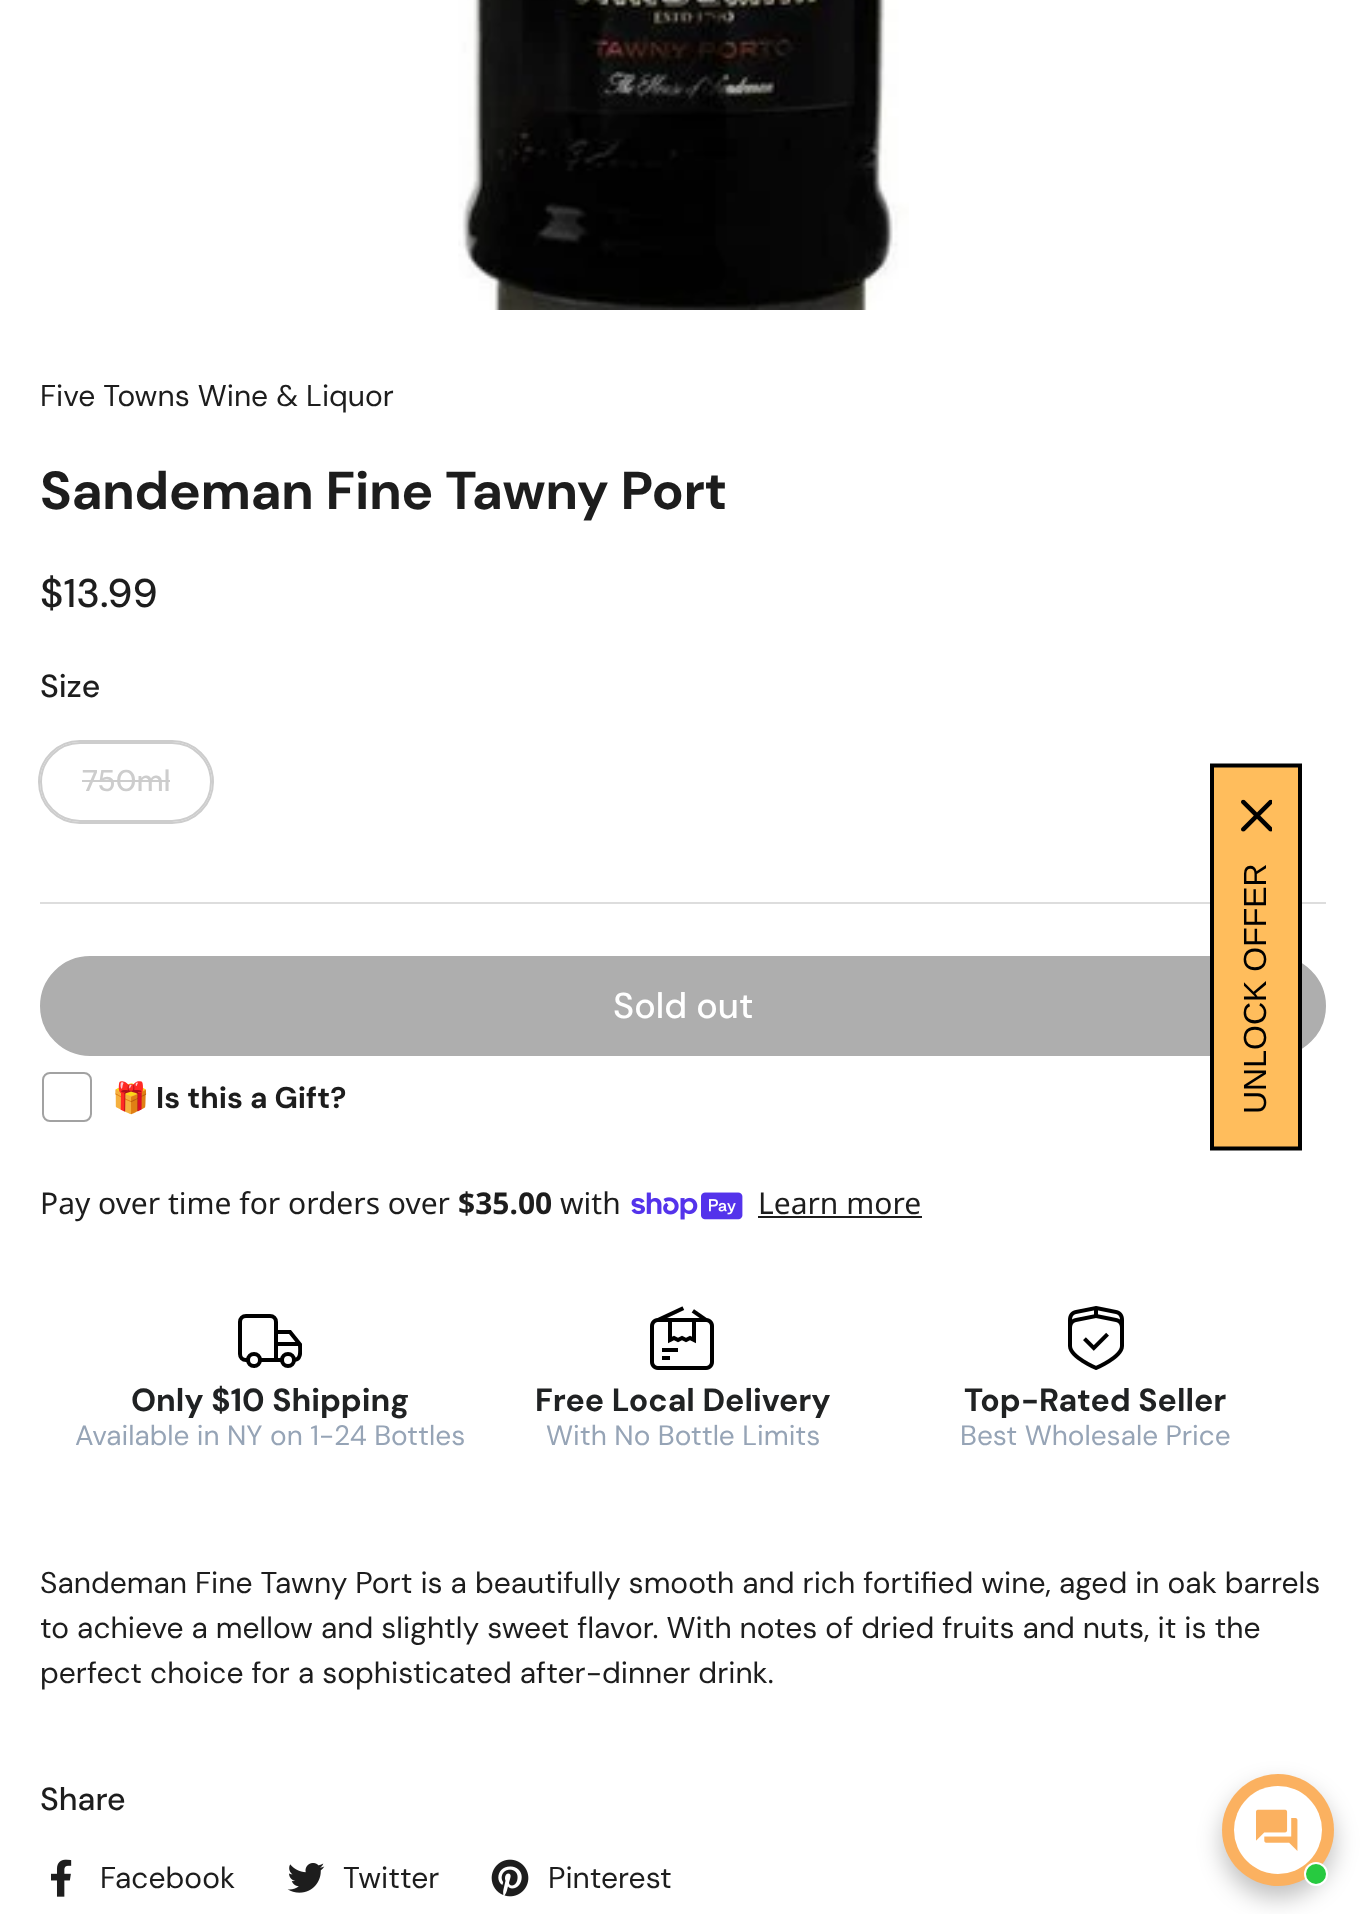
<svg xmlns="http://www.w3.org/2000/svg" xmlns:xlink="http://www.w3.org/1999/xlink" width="1366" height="1914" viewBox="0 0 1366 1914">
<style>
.cls-1{font:30px DM Sans;fill:#1d1d1d}
.cls-2{font:bold 53.3px DM Sans;fill:#1d1d1d}
.cls-3{font:500 40px DM Sans;fill:#1d1d1d}
.cls-4{font:500 32px 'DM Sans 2';fill:#1d1d1d}
.cls-5{font:500 30px 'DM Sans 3';fill:#cdcdcd}
.cls-6{font:500 36px 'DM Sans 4';fill:#ffffff}
.cls-7{font:bold 30px Noto Color Emoji;fill:#1d1d1d}
.cls-8{font:bold 30px 'DM Sans 2';fill:#1d1d1d}
.cls-9{font:30px Noto Sans;fill:#1d1d1d}
.cls-10{font:bold 30px Noto Sans;fill:#1d1d1d}
.cls-11{font:bold 32px 'DM Sans 3';fill:#202223}
.cls-12{font:28px 'DM Sans 2';fill:#96a4b6}
.cls-13{font:32px Liberation Sans;fill:#000000}
</style>
<defs>
<clipPath id="clip1"><rect x="238" y="1306" width="64" height="64"/></clipPath>
</defs>
<rect width="100%" height="100%" fill="#ffffff"/>
<image xlink:href="image0.png" x="458" y="0" width="451" height="310"/>
<rect fill="none" stroke="#cdcdcd" stroke-width="2" x="39" y="741" width="174" height="82" rx="41"/>
<rect fill="none" stroke="#cdcdcd" stroke-width="2" x="41" y="743" width="170" height="78" rx="39"/>
<rect fill="#cdcdcd" x="82" y="780" width="88" height="2"/>
<rect fill="#dddddd" x="40" y="902" width="1286" height="2"/>
<rect fill="#aeaeae" stroke="#aeaeae" stroke-width="2" x="41" y="957" width="1284" height="98" rx="49"/>
<rect fill="none" stroke="#a2a2a2" stroke-width="2" x="43" y="1073" width="48" height="48" rx="7"/>
<image xlink:href="image1.png" x="631" y="1192" width="112" height="28"/>
<rect fill="#1d1d1d" x="758" y="1216" width="164" height="2"/>
<circle fill="none" stroke="#000000" stroke-width="4" cx="288" cy="1360" r="6"/>
<circle fill="none" stroke="#000000" stroke-width="4" cx="254" cy="1360" r="6"/>
<path fill="none" stroke="#000000" stroke-width="4" d="M248 1360H246C242.5 1360 240 1357.5 240 1354V1322C240 1318.5 242.5 1316 246 1316H270C273.5 1316 276 1318.5 276 1322V1360H260"/>
<g clip-path="url(#clip1)">
<path fill="none" stroke="#000000" stroke-width="4" d="M282 1360H276V1332H290L300 1344.5C300 1349.5 302 1360 294 1360"/>
</g>
<rect fill="#000000" x="276" y="1342" width="24" height="4"/>
<image xlink:href="image2.png" x="650" y="1306" width="64" height="64"/>
<image xlink:href="image3.png" x="1068" y="1306" width="56" height="64"/>
<image xlink:href="image4.png" x="51" y="1859" width="21" height="38"/>
<image xlink:href="image5.png" x="287" y="1863" width="38" height="30"/>
<image xlink:href="image6.png" x="491" y="1859" width="38" height="38"/>
<rect fill="#ffbd5c" x="1214" y="767" width="84" height="380"/>
<path fill="none" stroke="#000000" stroke-width="4" d="M1212 1148.5V765.5H1300V1148.5Z"/>
<image xlink:href="image7.png" x="1241" y="799" width="31" height="33"/>
<rect fill="#000000" fill-opacity="0.25" filter="blur(12px)" x="1222" y="1786" width="112" height="112" rx="56"/>
<circle fill="#fbb160" cx="1278" cy="1830" r="56"/>
<circle fill="#ffffff" cx="1278" cy="1830" r="44"/>
<image xlink:href="image8.png" x="1256" y="1809" width="42" height="42"/>
<circle fill="#27ca40" stroke="#ffffff" stroke-width="2" cx="1316" cy="1874" r="11"/>
<text class="cls-1" x="40" y="406">Five Towns Wine &amp; Liquor</text>
<text class="cls-2" x="40" y="509">Sandeman Fine Tawny Port</text>
<text class="cls-3" x="40" y="607">$13.99</text>
<text class="cls-4" x="40" y="697">Size</text>
<text class="cls-5" x="82" y="791">750ml</text>
<text class="cls-6" x="613" y="1018">Sold out</text>
<text class="cls-7" x="112" y="1108">🎁</text>
<text class="cls-8" x="156" y="1108">Is this a Gift?</text>
<text class="cls-9" x="40" y="1214">Pay over time for orders over</text>
<text class="cls-10" x="458" y="1214">$35.00</text>
<text class="cls-9" x="560" y="1214">with</text>
<text class="cls-9" x="758" y="1214">Learn more</text>
<text class="cls-11" x="131" y="1411">Only $10 Shipping</text>
<text class="cls-12" x="75" y="1445">Available in NY on 1-24 Bottles</text>
<text class="cls-11" x="535" y="1411">Free Local Delivery</text>
<text class="cls-12" x="546" y="1445">With No Bottle Limits</text>
<text class="cls-11" x="964" y="1411">Top-Rated Seller</text>
<text class="cls-12" x="960" y="1445">Best Wholesale Price</text>
<text class="cls-1"><tspan x="40" y="1593">Sandeman Fine Tawny Port is a beautifully smooth and rich fortified wine, aged in oak barrels</tspan><tspan x="40" y="1638">to achieve a mellow and slightly sweet flavor. With notes of dried fruits and nuts, it is the</tspan><tspan x="40" y="1683">perfect choice for a sophisticated after-dinner drink.</tspan></text>
<text class="cls-4" x="40" y="1810">Share</text>
<text class="cls-1" x="100" y="1888">Facebook</text>
<text class="cls-1" x="343" y="1888">Twitter</text>
<text class="cls-1" x="548" y="1888">Pinterest</text>
<text class="cls-13" x="1266" y="1114" transform="rotate(-90 1266 1114)">UNLOCK OFFER</text>
</svg>
